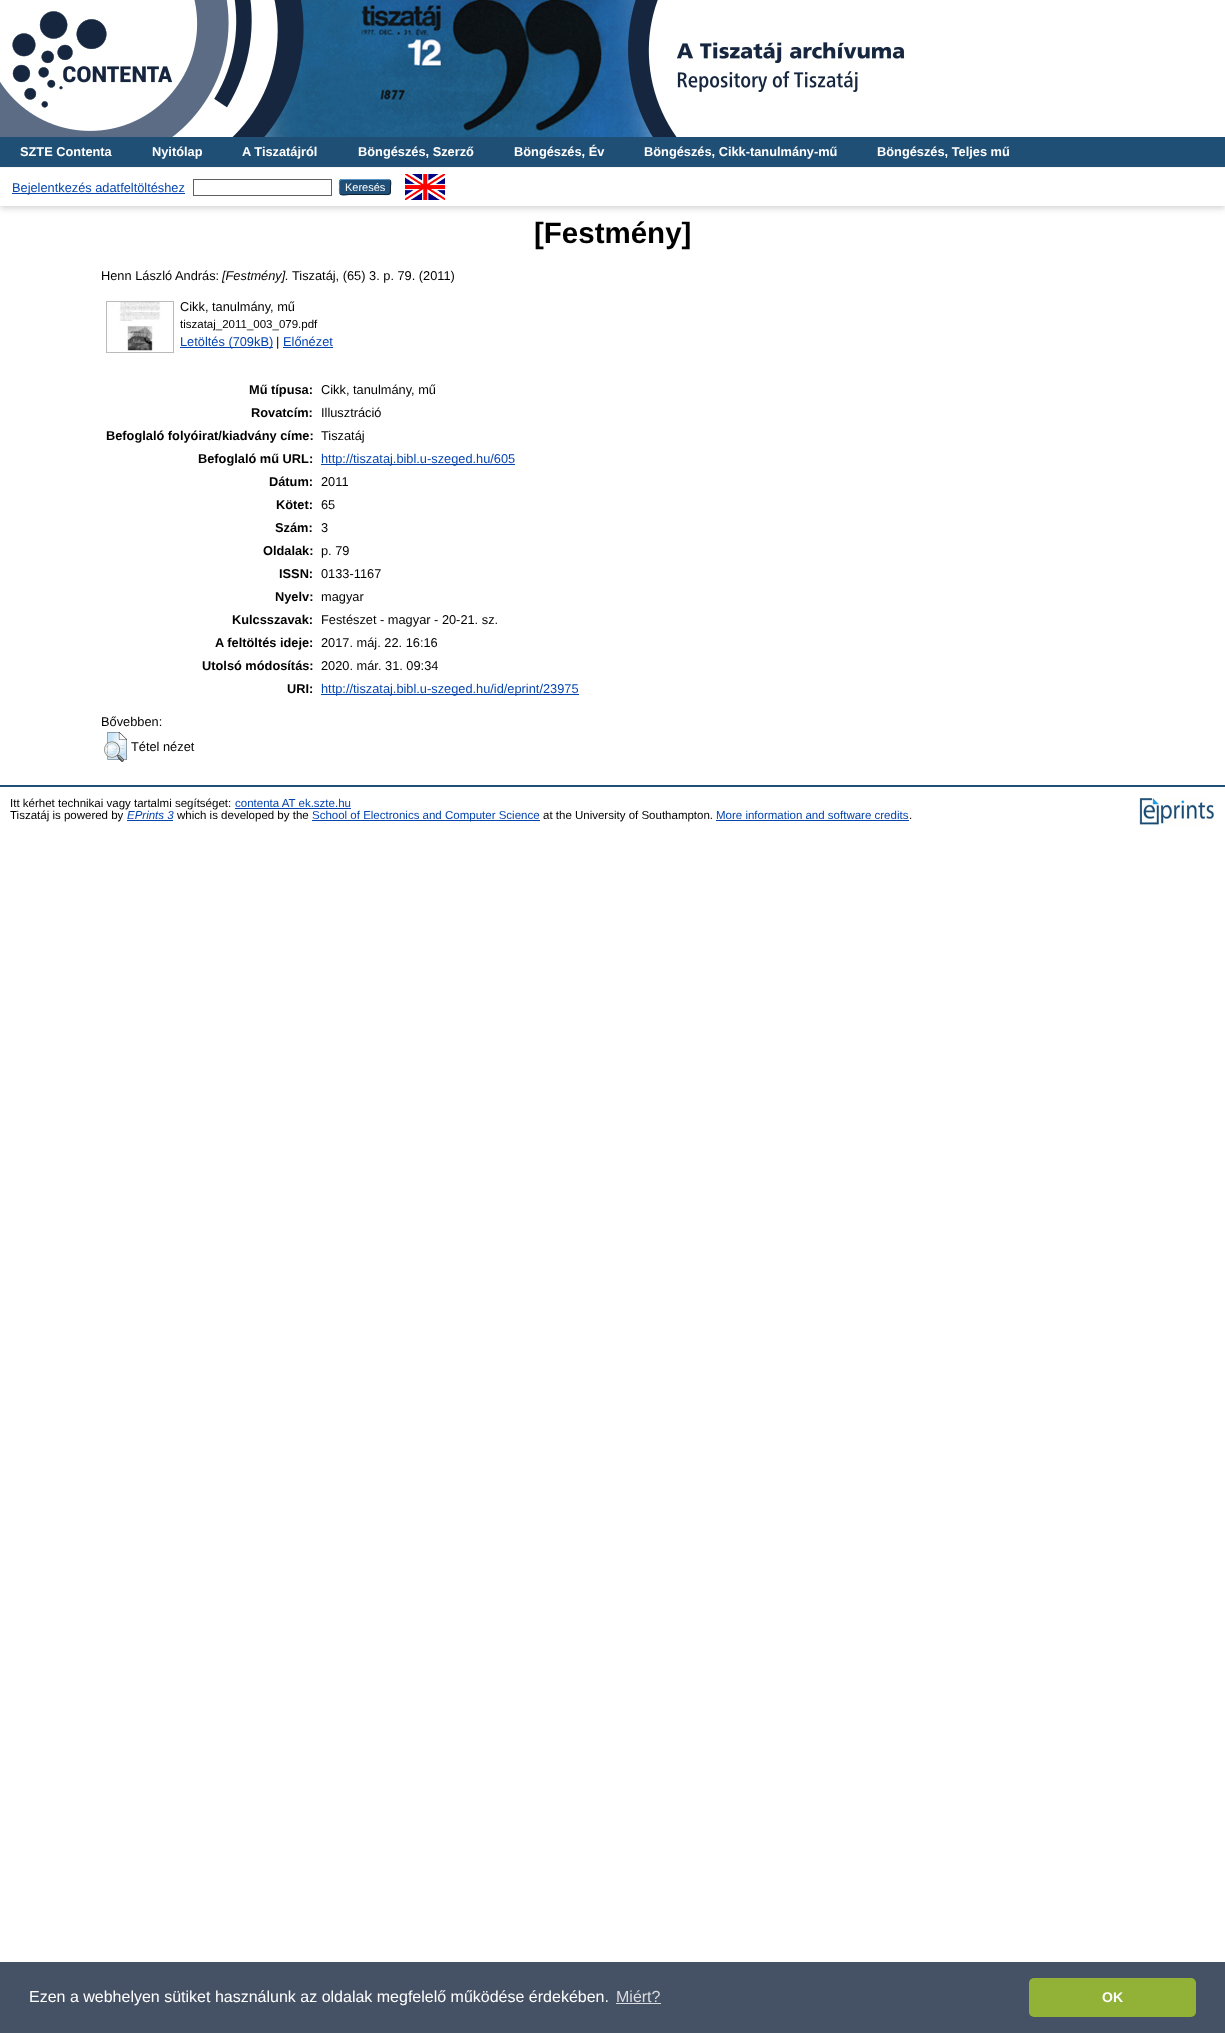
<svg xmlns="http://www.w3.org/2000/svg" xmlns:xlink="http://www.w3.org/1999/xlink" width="1225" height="2033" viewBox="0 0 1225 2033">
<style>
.cls-1{font:bold 12.8px Liberation Sans;fill:#ffffff}
.cls-2{font:12.8px Liberation Sans;fill:#0645ad}
.cls-3{font:11px Liberation Sans;fill:#ffffff}
.cls-4{font:bold 29.5px Liberation Sans;fill:#000000}
.cls-5{font:12.8px Liberation Sans;fill:#000000}
.cls-6{font:italic 12.8px Liberation Sans;fill:#000000}
.cls-7{font:11.5px Liberation Sans;fill:#000000}
.cls-8{font:bold 12.8px Liberation Sans;fill:#000000}
.cls-9{font:11.5px Liberation Sans;fill:#0645ad}
.cls-10{font:italic 11.5px Liberation Sans;fill:#0645ad}
.cls-11{font:16px Liberation Sans;fill:#ffffff}
.cls-12{font:16px Liberation Sans;fill:#dadce0}
.cls-13{font:bold 14px Liberation Sans;fill:#ffffff}
</style>
<rect width="100%" height="100%" fill="#ffffff"/>
<image xlink:href="image0.png" x="0" y="0" width="905" height="137"/>
<rect fill="#204f76" x="0" y="137" width="1225" height="30"/>
<rect fill="#646464" fill-opacity="0.3" filter="blur(3px)" x="0" y="170" width="1225" height="38"/>
<rect fill="#ffffff" x="0" y="168" width="1225" height="38"/>
<rect fill="#0645ad" x="12" y="193" width="173" height="1"/>
<rect fill="none" stroke="#606060" x="193.5" y="179.5" width="138" height="16"/>
<rect fill="#1f4f76" x="339" y="179" width="52" height="16" rx="3"/>
<path fill="none" stroke="#5b97c7" d="M340 180L342 179.5H388L390 180"/>
<path fill="none" stroke="#0d2131" d="M390 180C391.5 182 390.5 185 390.5 187C390.5 196 390.5 194.5 380.5 194.5H349.5C346.5 194.5 342.5 196 340 194"/>
<path fill="none" stroke="#5287b3" d="M340 194C339 192.5 339.5 188.5 339.5 187C339.5 185.5 339 181.5 340 180"/>
<image xlink:href="image1.png" x="405" y="174" width="40" height="26"/>
<image xlink:href="image2.png" x="106" y="301" width="68" height="52"/>
<rect fill="#0645ad" x="180" y="347" width="93" height="1"/>
<rect fill="#0645ad" x="283" y="347" width="50" height="1"/>
<rect fill="#0645ad" x="321" y="464" width="194" height="1"/>
<rect fill="#0645ad" x="321" y="694" width="258" height="1"/>
<image xlink:href="image3.png" x="104" y="732" width="23" height="30"/>
<rect fill="#204f76" x="0" y="785" width="1225" height="2"/>
<rect fill="#0645ad" x="235" y="808" width="116" height="1"/>
<rect fill="#0645ad" x="127" y="820" width="46" height="1"/>
<rect fill="#0645ad" x="312" y="820" width="228" height="1"/>
<rect fill="#0645ad" x="716" y="820" width="193" height="1"/>
<image xlink:href="image4.png" x="1138" y="798" width="76" height="28"/>
<rect fill="#455165" x="0" y="1962" width="1225" height="71"/>
<rect fill="#dadce0" x="616" y="2003" width="45" height="1"/>
<rect fill="#91b236" x="1029" y="1978" width="167" height="39" rx="5"/>
<text class="cls-1" x="20" y="156">SZTE Contenta</text>
<text class="cls-1" x="152" y="156">Nyitólap</text>
<text class="cls-1" x="242" y="156">A Tiszatájról</text>
<text class="cls-1" x="358" y="156">Böngészés, Szerző</text>
<text class="cls-1" x="514" y="156">Böngészés, Év</text>
<text class="cls-1" x="644" y="156">Böngészés, Cikk-tanulmány-mű</text>
<text class="cls-1" x="877" y="156">Böngészés, Teljes mű</text>
<text class="cls-2" x="12" y="192">Bejelentkezés adatfeltöltéshez</text>
<text class="cls-3" x="345" y="191">Keresés</text>
<text class="cls-4" x="534" y="243">[Festmény]</text>
<text class="cls-5" x="101" y="280">Henn László András:</text>
<text class="cls-6" x="222" y="280">[Festmény].</text>
<text class="cls-5" x="292" y="280">Tiszatáj, (65) 3. p. 79. (2011)</text>
<text class="cls-5" x="180" y="311">Cikk, tanulmány, mű</text>
<text class="cls-7" x="180" y="328">tiszataj_2011_003_079.pdf</text>
<text class="cls-2" x="180" y="346">Letöltés (709kB)</text>
<text class="cls-5" x="276" y="346">|</text>
<text class="cls-2" x="283" y="346">Előnézet</text>
<text class="cls-8" x="249" y="394">Mű típusa:</text>
<text class="cls-5" x="321" y="394">Cikk, tanulmány, mű</text>
<text class="cls-8" x="251" y="417">Rovatcím:</text>
<text class="cls-5" x="321" y="417">Illusztráció</text>
<text class="cls-8" x="106" y="440">Befoglaló folyóirat/kiadvány címe:</text>
<text class="cls-5" x="321" y="440">Tiszatáj</text>
<text class="cls-8" x="198" y="463">Befoglaló mű URL:</text>
<text class="cls-2" x="321" y="463">http://tiszataj.bibl.u-szeged.hu/605</text>
<text class="cls-8" x="269" y="486">Dátum:</text>
<text class="cls-5" x="321" y="486">2011</text>
<text class="cls-8" x="276" y="509">Kötet:</text>
<text class="cls-5" x="321" y="509">65</text>
<text class="cls-8" x="275" y="532">Szám:</text>
<text class="cls-5" x="321" y="532">3</text>
<text class="cls-8" x="263" y="555">Oldalak:</text>
<text class="cls-5" x="321" y="555">p. 79</text>
<text class="cls-8" x="279" y="578">ISSN:</text>
<text class="cls-5" x="321" y="578">0133-1167</text>
<text class="cls-8" x="275" y="601">Nyelv:</text>
<text class="cls-5" x="321" y="601">magyar</text>
<text class="cls-8" x="232" y="624">Kulcsszavak:</text>
<text class="cls-5" x="321" y="624">Festészet - magyar - 20-21. sz.</text>
<text class="cls-8" x="215" y="647">A feltöltés ideje:</text>
<text class="cls-5" x="321" y="647">2017. máj. 22. 16:16</text>
<text class="cls-8" x="202" y="670">Utolsó módosítás:</text>
<text class="cls-5" x="321" y="670">2020. már. 31. 09:34</text>
<text class="cls-8" x="287" y="693">URI:</text>
<text class="cls-2" x="321" y="693">http://tiszataj.bibl.u-szeged.hu/id/eprint/23975</text>
<text class="cls-5" x="101" y="726">Bővebben:</text>
<text class="cls-5" x="131" y="751">Tétel nézet</text>
<text class="cls-7" x="10" y="807">Itt kérhet technikai vagy tartalmi segítséget:</text>
<text class="cls-9" x="235" y="807">contenta AT ek.szte.hu</text>
<text class="cls-7" x="10" y="819">Tiszatáj is powered by</text>
<text class="cls-10" x="127" y="819">EPrints 3</text>
<text class="cls-7" x="177" y="819">which is developed by the</text>
<text class="cls-9" x="312" y="819">School of Electronics and Computer Science</text>
<text class="cls-7" x="543" y="819">at the University of Southampton.</text>
<text class="cls-9" x="716" y="819">More information and software credits</text>
<text class="cls-7" x="909" y="819">.</text>
<text class="cls-11" x="29" y="2002">Ezen a webhelyen sütiket használunk az oldalak megfelelő működése érdekében.</text>
<text class="cls-12" x="616" y="2002">Miért?</text>
<text class="cls-13" x="1102" y="2002">OK</text>
</svg>
